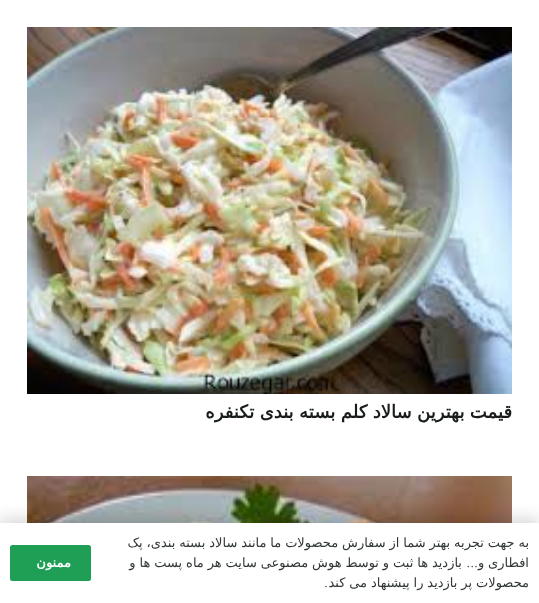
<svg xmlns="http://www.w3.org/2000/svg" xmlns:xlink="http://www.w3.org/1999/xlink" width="539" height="603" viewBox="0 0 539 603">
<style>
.cls-1{font:bold 18px DejaVu Sans;direction:rtl;fill:#181c1b}
.cls-2{font:13px DejaVu Sans;direction:rtl;fill:#313835}
.cls-3{font:13px Jost;direction:rtl;fill:#313835}
.cls-4{font:bold 13px DejaVu Sans;letter-spacing:0.5px;direction:rtl;fill:#ffffff}
</style>
<rect width="100%" height="100%" fill="#ffffff"/>
<image xlink:href="image0.png" x="27" y="27" width="485" height="367"/>
<image xlink:href="image1.png" x="27" y="476" width="485" height="47"/>
<rect fill="#000000" fill-opacity="0.15" filter="blur(7.5px)" x="0" y="518" width="539" height="80"/>
<rect fill="#ffffff" x="0" y="523" width="539" height="80"/>
<rect fill="#1e9f55" x="10" y="545" width="81" height="36" rx="2.5"/>
<text class="cls-1" x="512" y="418" word-spacing="-0.25">قیمت بهترین سالاد کلم بسته بندی تکنفره</text>
<text class="cls-2"><tspan x="529" y="547" word-spacing="-0.25">به جهت تجربه بهتر شما از سفارش محصولات ما مانند سالاد بسته بندی، پک</tspan><tspan x="529" y="567" word-spacing="-0.25">افطاری و</tspan></text>
<text class="cls-3" x="478" y="567">...</text>
<text class="cls-2" x="462" y="567" word-spacing="-0.25">بازدید ها ثبت و توسط هوش مصنوعی سایت هر ماه پست ها و</text>
<text class="cls-2" x="529" y="587" word-spacing="-0.25">محصولات پر بازدید را پیشنهاد می کند</text>
<text class="cls-3" x="328" y="587">.</text>
<text class="cls-4" x="71" y="567">ممنون</text>
</svg>
